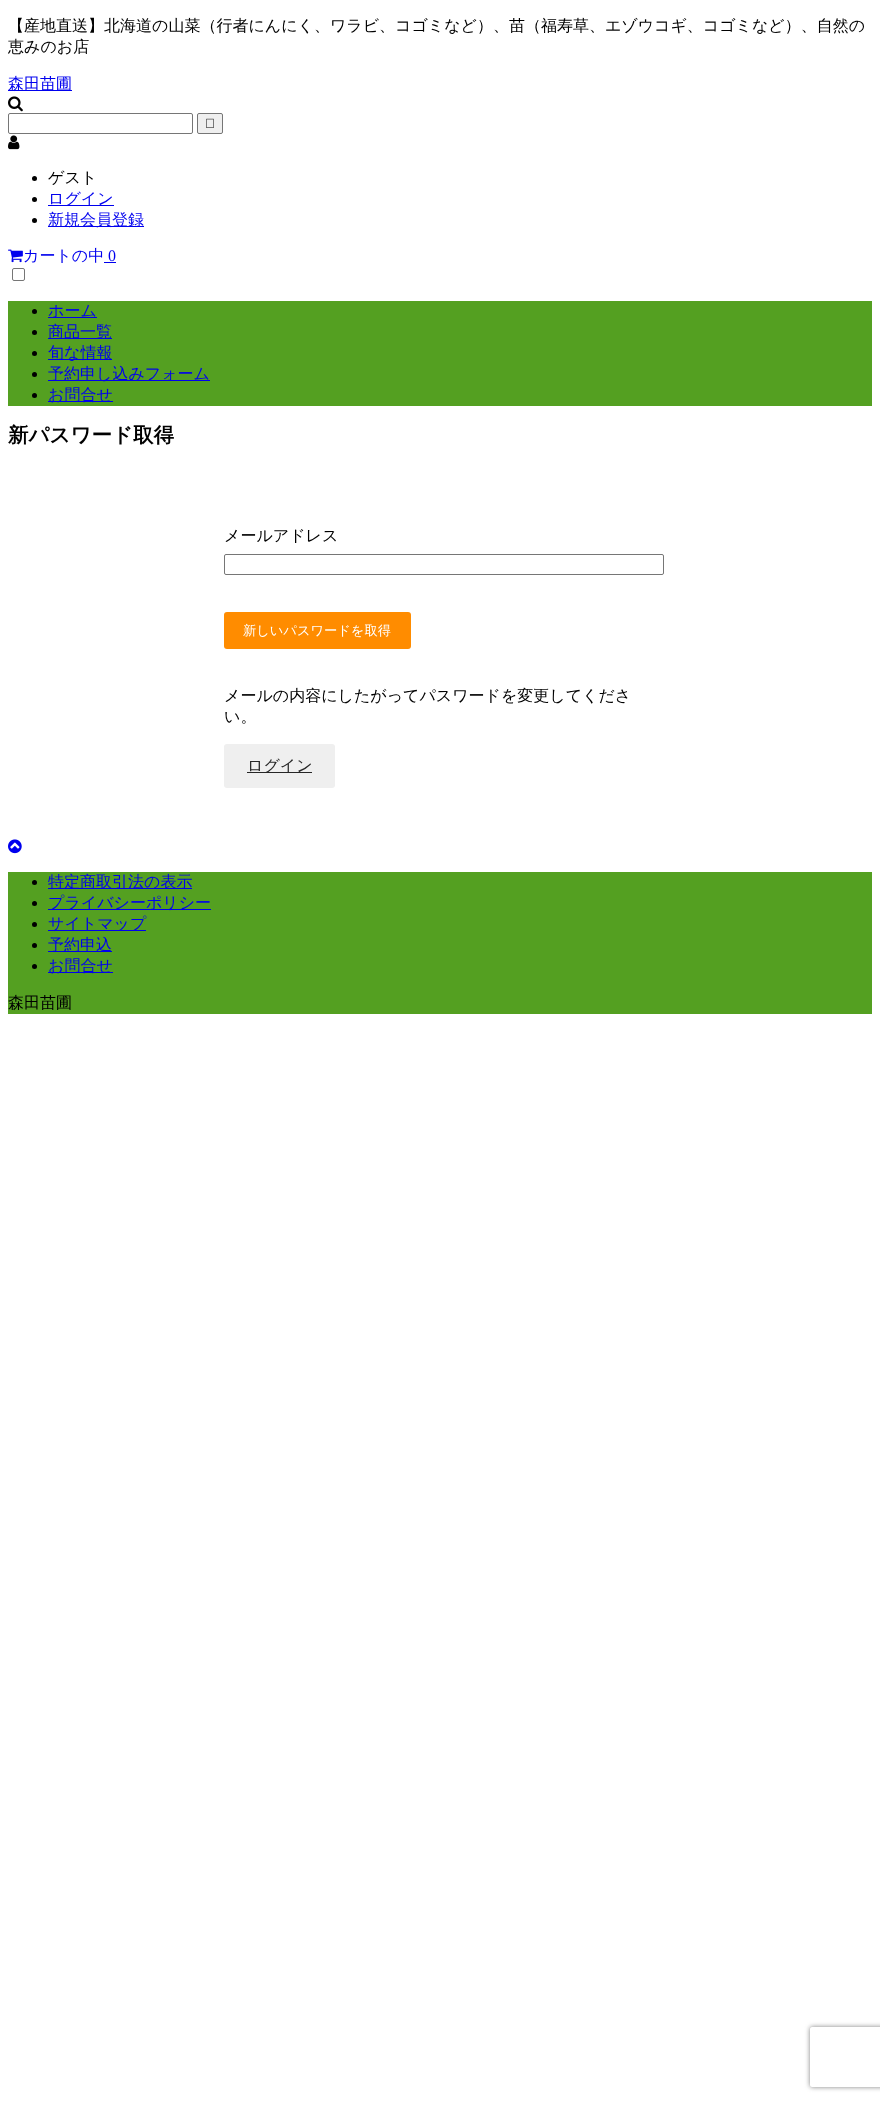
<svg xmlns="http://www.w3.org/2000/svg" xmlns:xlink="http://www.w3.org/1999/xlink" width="880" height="2101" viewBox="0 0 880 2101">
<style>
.cls-1{font:500 16px WenQuanYi Zen Hei;fill:#000000}
.cls-2{font:500 16px WenQuanYi Zen Hei;fill:#0000ee}
.cls-3{font:16px Liberation Serif;fill:#0000ee}
.cls-4{font:bold 20.5px WenQuanYi Zen Hei;fill:#000000}
.cls-5{font:500 13.25px WenQuanYi Zen Hei;fill:#ffffff}
.cls-6{font:500 16px WenQuanYi Zen Hei;fill:#262626}
</style>
<defs>
<clipPath id="clip1"><path d="M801 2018H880V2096H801ZM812 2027H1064C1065 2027 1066 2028 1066 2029V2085C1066 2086 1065 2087 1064 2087H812C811 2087 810 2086 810 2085V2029C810 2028 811 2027 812 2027Z" clip-rule="evenodd"/></clipPath>
</defs>
<rect width="100%" height="100%" fill="#ffffff"/>
<rect fill="#0000ee" x="8" y="90" width="64" height="1"/>
<image xlink:href="image0.png" x="8" y="96" width="15" height="16"/>
<rect fill="none" stroke="#767676" x="8.5" y="113.5" width="184" height="20" rx="1.5"/>
<rect fill="#efefef" stroke="#767676" x="197.5" y="113.5" width="25" height="20" rx="1.5"/>
<image xlink:href="image1.png" x="206" y="118" width="8" height="10"/>
<image xlink:href="image2.png" x="8" y="135" width="12" height="15"/>
<circle fill="#000000" cx="34.5" cy="178.5" r="2.5"/>
<circle fill="#000000" cx="34.5" cy="199.5" r="2.5"/>
<rect fill="#0000ee" x="48" y="205" width="66" height="1"/>
<circle fill="#000000" cx="34.5" cy="220.5" r="2.5"/>
<rect fill="#0000ee" x="48" y="226" width="96" height="1"/>
<image xlink:href="image3.png" x="8" y="249" width="15" height="14"/>
<rect fill="#0000ee" x="104" y="262" width="12" height="1"/>
<rect fill="none" stroke="#767676" x="12.5" y="268.5" width="12" height="12" rx="1.5"/>
<rect fill="#54a021" x="8" y="301" width="864" height="105"/>
<circle fill="#000000" cx="34.5" cy="311.5" r="2.5"/>
<rect fill="#0000ee" x="48" y="317" width="49" height="1"/>
<circle fill="#000000" cx="34.5" cy="332.5" r="2.5"/>
<rect fill="#0000ee" x="48" y="338" width="64" height="1"/>
<circle fill="#000000" cx="34.5" cy="353.5" r="2.5"/>
<rect fill="#0000ee" x="48" y="359" width="64" height="1"/>
<circle fill="#000000" cx="34.5" cy="374.5" r="2.5"/>
<rect fill="#0000ee" x="48" y="380" width="162" height="1"/>
<circle fill="#000000" cx="34.5" cy="395.5" r="2.5"/>
<rect fill="#0000ee" x="48" y="401" width="65" height="1"/>
<rect fill="none" stroke="#767676" x="224.5" y="554.5" width="439" height="20" rx="1.5"/>
<rect fill="#ff8c00" x="224" y="612" width="187" height="37" rx="3"/>
<rect fill="#efefef" x="224" y="744" width="111" height="44" rx="3"/>
<rect fill="#262626" x="247" y="772" width="65" height="1"/>
<image xlink:href="image4.png" x="8" y="839" width="14" height="15"/>
<rect fill="#54a021" x="8" y="872" width="864" height="142"/>
<circle fill="#000000" cx="34.5" cy="882.5" r="2.5"/>
<rect fill="#0000ee" x="48" y="888" width="144" height="1"/>
<circle fill="#000000" cx="34.5" cy="903.5" r="2.5"/>
<rect fill="#0000ee" x="48" y="909" width="163" height="1"/>
<circle fill="#000000" cx="34.5" cy="924.5" r="2.5"/>
<rect fill="#0000ee" x="48" y="930" width="98" height="1"/>
<circle fill="#000000" cx="34.5" cy="945.5" r="2.5"/>
<rect fill="#0000ee" x="48" y="951" width="64" height="1"/>
<circle fill="#000000" cx="34.5" cy="966.5" r="2.5"/>
<rect fill="#0000ee" x="48" y="972" width="65" height="1"/>
<g clip-path="url(#clip1)">
<rect fill="#808080" filter="blur(2.5px)" x="810" y="2027" width="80" height="60" rx="2"/>
</g>
<text class="cls-1"><tspan x="8" y="31">【産地直送】北海道の山菜（行者にんにく、ワラビ、コゴミなど）、苗（福寿草、エゾウコギ、コゴミなど）、自然の</tspan><tspan x="8" y="52">恵みのお店</tspan></text>
<text class="cls-2" x="8" y="89">森田苗圃</text>
<text class="cls-1" x="48" y="183">ゲスト</text>
<text class="cls-2"><tspan x="48" y="204">ログイン</tspan><tspan x="48" y="225">新規会員登録</tspan></text>
<text class="cls-2" x="23" y="261">カートの中</text>
<text class="cls-3" x="108" y="261">0</text>
<text class="cls-2"><tspan x="48" y="316">ホーム</tspan><tspan x="48" y="337">商品一覧</tspan><tspan x="48" y="358">旬な情報</tspan><tspan x="48" y="379">予約申し込みフォーム</tspan><tspan x="48" y="400">お問合せ</tspan></text>
<text class="cls-4" x="8" y="442">新パスワード取得</text>
<text class="cls-1" x="224" y="541">メールアドレス</text>
<text class="cls-5" x="243" y="635">新しいパスワードを取得</text>
<text class="cls-1"><tspan x="224" y="701">メールの内容にしたがってパスワードを変更してくださ</tspan><tspan x="224" y="722">い。</tspan></text>
<text class="cls-6" x="247" y="771">ログイン</text>
<text class="cls-2"><tspan x="48" y="887">特定商取引法の表示</tspan><tspan x="48" y="908">プライバシーポリシー</tspan><tspan x="48" y="929">サイトマップ</tspan><tspan x="48" y="950">予約申込</tspan><tspan x="48" y="971">お問合せ</tspan></text>
<text class="cls-1" x="8" y="1008">森田苗圃</text>
</svg>
